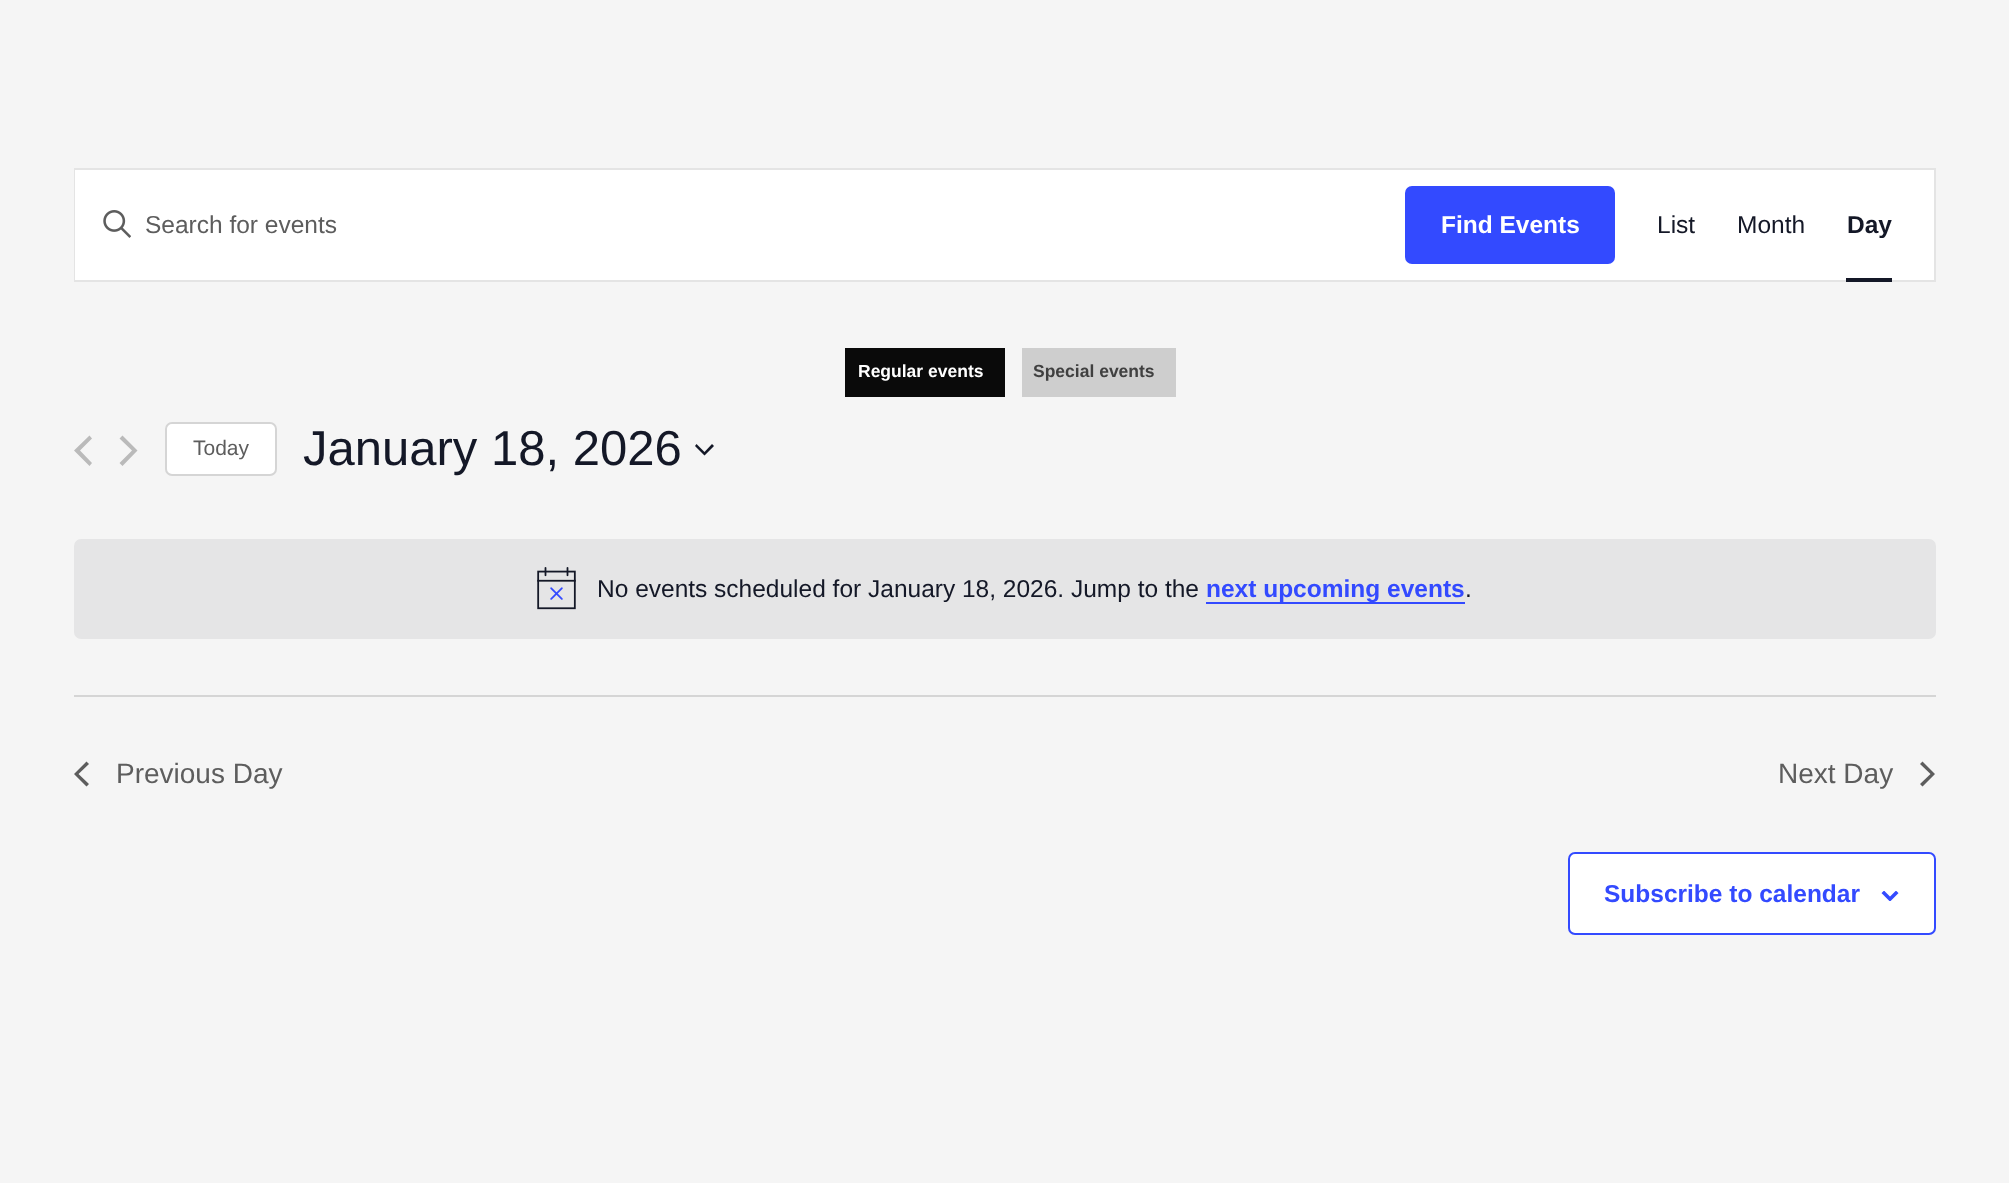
<svg xmlns="http://www.w3.org/2000/svg" xmlns:xlink="http://www.w3.org/1999/xlink" width="2009" height="1183" viewBox="0 0 2009 1183">
<style>
.cls-1{font:24.5px Liberation Sans;fill:#5d5d5d}
.cls-2{font:bold 24.5px Liberation Sans;fill:#ffffff}
.cls-3{font:24.5px Liberation Sans;fill:#141827}
.cls-4{font:bold 24.5px Liberation Sans;fill:#141827}
.cls-5{font:bold 17.5px Liberation Sans;fill:#ffffff}
.cls-6{font:bold 17.5px Liberation Sans;fill:#404040}
.cls-7{font:21px Liberation Sans;fill:#5d5d5d}
.cls-8{font:49px Liberation Sans;fill:#141827}
.cls-9{font:bold 24.5px Liberation Sans;fill:#334aff}
.cls-10{font:28px Liberation Sans;fill:#5d5d5d}
</style>
<rect width="100%" height="100%" fill="#f5f5f5"/>
<rect fill="#ffffff" x="1615" y="170" width="319" height="110"/>
<rect fill="none" stroke="#e4e4e4" stroke-width="2" x="75" y="169" width="1860" height="112"/>
<rect fill="#ffffff" x="75" y="170" width="1540" height="110"/>
<image xlink:href="image0.png" x="103" y="210" width="28" height="28"/>
<rect fill="#334aff" x="1405" y="186" width="210" height="78" rx="7"/>
<rect fill="#141827" x="1846" y="278" width="46" height="4"/>
<rect fill="#0a0a0a" x="845" y="348" width="160" height="49"/>
<rect fill="#cecece" x="1022" y="348" width="154" height="49"/>
<path fill="#bababa" d="M92 463L89.5 466L74 450.5L89.5 435.5L92 438.5L80 450.5Z"/>
<path fill="#bababa" d="M119.5 438.5L122.5 435.5L137.5 450.5L122.5 466L119.5 463L132 450.5Z"/>
<rect fill="#ffffff" stroke="#d5d5d5" stroke-width="2" x="166" y="423" width="110" height="52" rx="6"/>
<path fill="#141827" fill-rule="evenodd" d="M696.5 444L704.5 452L712 444L714 446L704.5 455.5L695 446Z"/>
<rect fill="#e5e5e6" x="74" y="539" width="1862" height="100" rx="7"/>
<image xlink:href="image1.png" x="537" y="567" width="39" height="43"/>
<rect fill="#334aff" x="1206" y="602" width="259" height="2"/>
<rect fill="#d5d5d5" x="74" y="695" width="1862" height="2"/>
<path fill="#5d5d5d" d="M89 784L86.5 786.5L74 774L86.5 761.5L89 764L78.5 774Z"/>
<path fill="#5d5d5d" d="M1920 764L1922.5 761.5L1935 774L1922.5 786.5L1920 784L1930.5 774Z"/>
<rect fill="#ffffff" stroke="#334aff" stroke-width="2" x="1569" y="853" width="366" height="81" rx="6"/>
<image xlink:href="image2.png" x="1881" y="891" width="18" height="10"/>
<text class="cls-1" x="145" y="233">Search for events</text>
<text class="cls-2" x="1441" y="233">Find Events</text>
<text class="cls-3" x="1657" y="233">List</text>
<text class="cls-3" x="1737" y="233">Month</text>
<text class="cls-4" x="1847" y="233">Day</text>
<text class="cls-5" x="858" y="377">Regular events</text>
<text class="cls-6" x="1033" y="377">Special events</text>
<text class="cls-7" x="193" y="455">Today</text>
<text class="cls-8" x="303" y="465">January 18, 2026</text>
<text class="cls-3" x="597" y="597">No events scheduled for January 18, 2026. Jump to the</text>
<text class="cls-9" x="1206" y="597">next upcoming events</text>
<text class="cls-3" x="1465" y="597">.</text>
<text class="cls-10" x="116" y="783">Previous Day</text>
<text class="cls-10" x="1778" y="783">Next Day</text>
<text class="cls-9" x="1604" y="902">Subscribe to calendar</text>
</svg>
